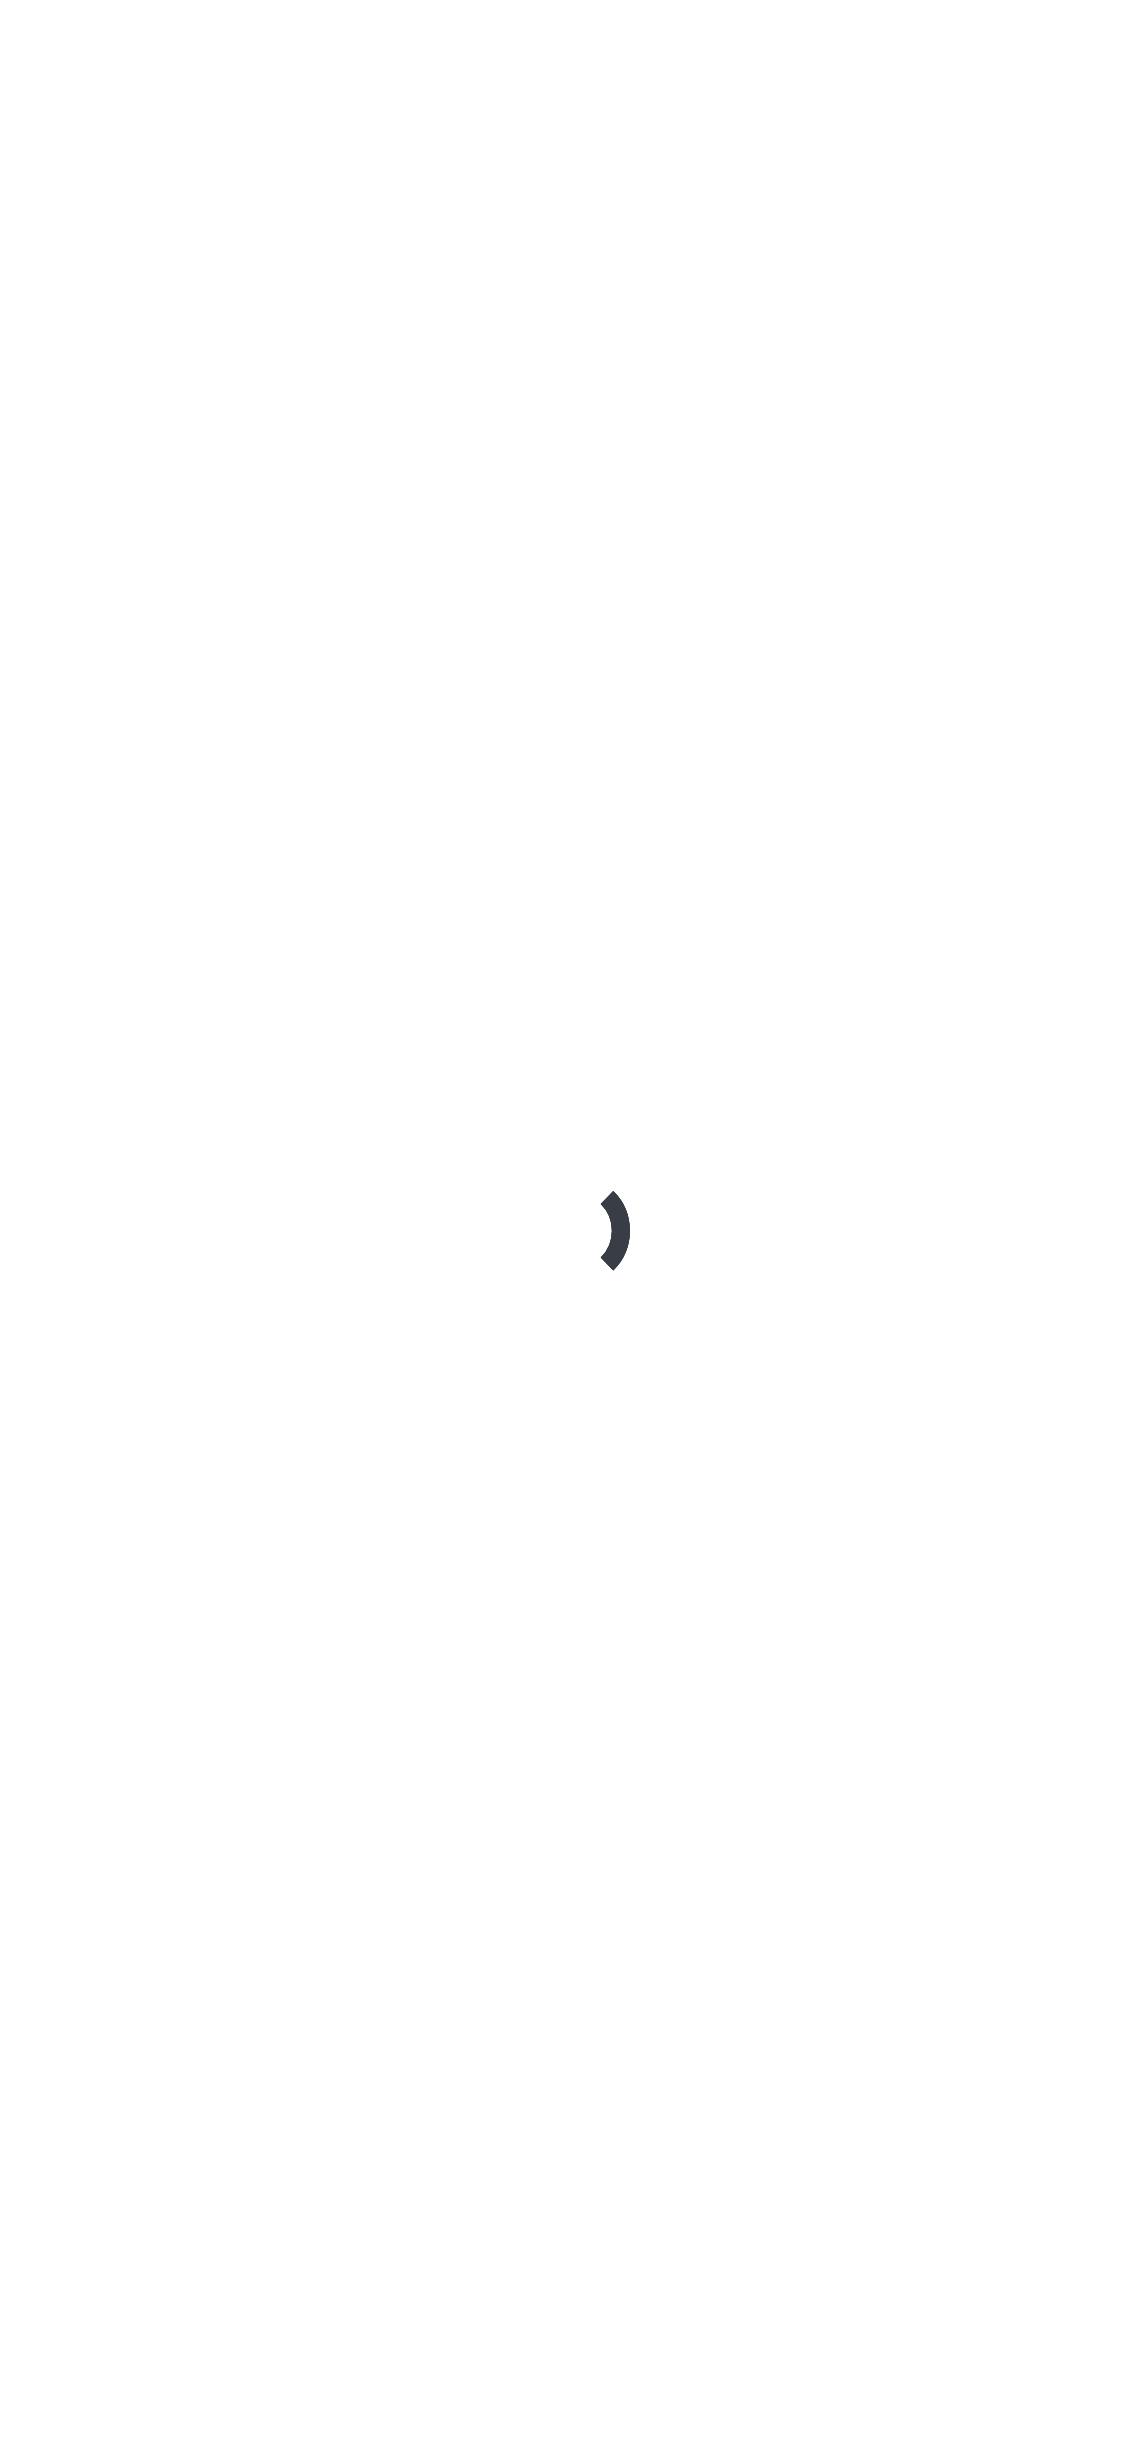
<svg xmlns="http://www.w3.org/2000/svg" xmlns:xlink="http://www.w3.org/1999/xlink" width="1144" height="2461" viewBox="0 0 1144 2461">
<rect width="100%" height="100%" fill="#ffffff"/>
<path fill="none" stroke="#393e46" stroke-width="18" d="M607 1197.5C625.5 1215.5 625.5 1246 607 1264"/>
<path fill="none" stroke="#393e46" stroke-width="18" d="M607 1197.5C625.5 1215.5 625.5 1246 607 1264"/>
<path fill="none" stroke="#393e46" stroke-width="18" d="M607 1197.5C625.5 1215.5 625.5 1246 607 1264"/>
</svg>
